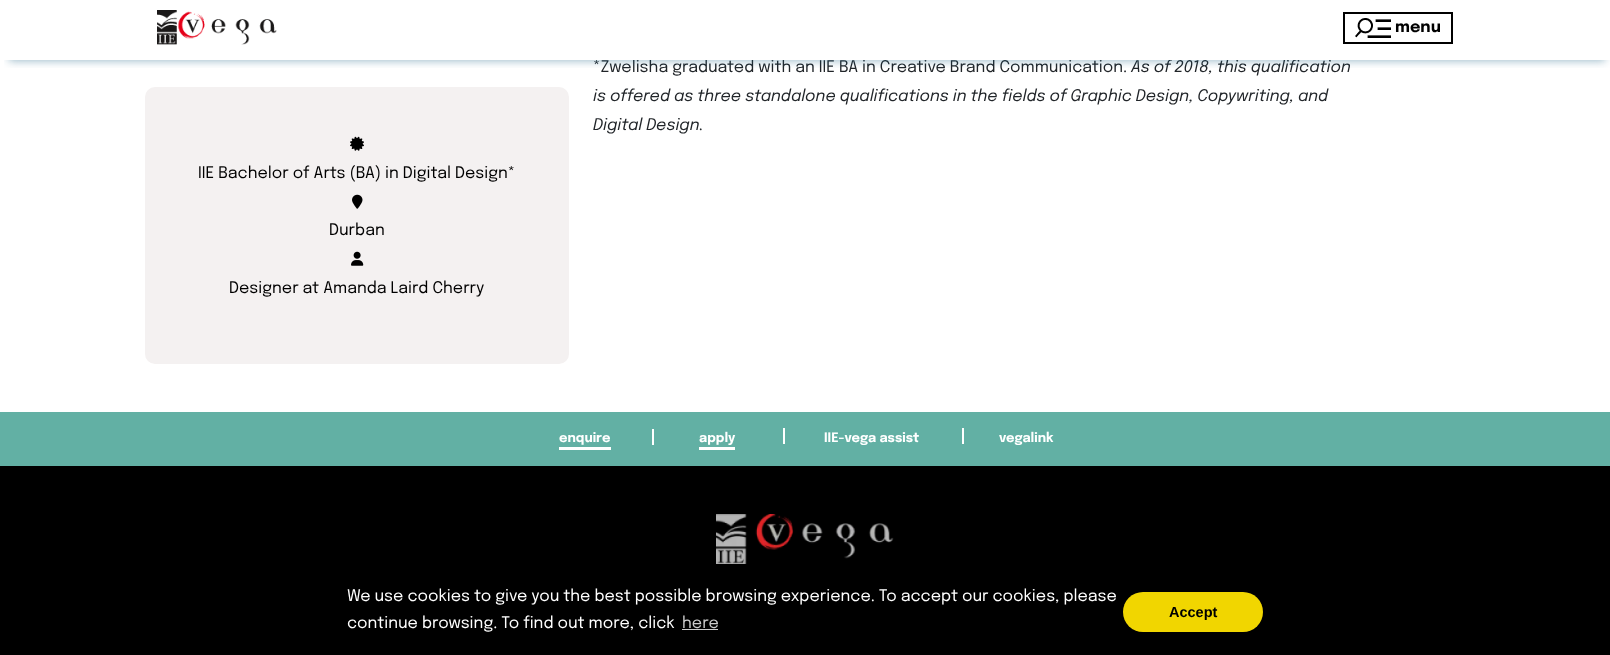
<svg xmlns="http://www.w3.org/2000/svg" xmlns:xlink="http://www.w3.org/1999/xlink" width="1610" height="655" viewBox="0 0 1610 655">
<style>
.cls-1{font:16px Epilogue;fill:#212529}
.cls-2{font:italic 16px Epilogue;fill:#212529}
.cls-3{font:bold 16px Epilogue;fill:#000000}
.cls-4{font:16px Epilogue;fill:#000000}
.cls-5{font:bold 13px Epilogue;fill:#ffffff}
.cls-6{font:16px Epilogue;fill:#ffffff}
.cls-7{font:16px Epilogue;fill:#cccccc}
.cls-8{font:bold 14.5px Liberation Sans;fill:#000000}
</style>
<defs>
<clipPath id="clip1"><rect x="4" y="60" width="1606" height="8"/></clipPath>
</defs>
<rect width="100%" height="100%" fill="#ffffff"/>
<rect fill="#f4f1f1" x="145" y="87" width="424" height="277" rx="10"/>
<image xlink:href="image2.png" x="350" y="136" width="14" height="15"/>
<image xlink:href="image3.png" x="352" y="194" width="11" height="15"/>
<image xlink:href="image4.png" x="351" y="251" width="13" height="15"/>
<rect fill="#000000" x="0" y="466" width="1610" height="103"/>
<rect fill="#62b0a4" x="0" y="412" width="1610" height="54"/>
<rect fill="#ffffff" x="559" y="447" width="52" height="3"/>
<rect fill="#ffffff" x="652" y="429" width="2" height="16"/>
<rect fill="#ffffff" x="699" y="447" width="36" height="3"/>
<rect fill="#ffffff" x="783" y="428" width="2" height="16"/>
<rect fill="#ffffff" x="962" y="428" width="2" height="16"/>
<image xlink:href="image5.png" x="716" y="514" width="178" height="50"/>
<rect fill="#000000" fill-opacity="0.1" filter="blur(5px)" x="0" y="565" width="1610" height="86"/>
<rect fill="#000000" x="0" y="569" width="1610" height="86"/>
<rect fill="#cccccc" x="682" y="629" width="36" height="1"/>
<rect fill="#f1d600" x="1123" y="592" width="140" height="40" rx="20"/>
<text class="cls-1" x="593" y="72">*Zwelisha graduated with an IIE BA in Creative Brand Communication.</text>
<text class="cls-2" x="1131" y="72">As of 2018, this qualification</text>
<rect fill="#ffffff" x="633" y="59" width="664" height="1"/>
<g clip-path="url(#clip1)">
<rect fill="#105a7e" fill-opacity="0.41" filter="blur(4px)" x="9" y="15" width="1596" height="46"/>
</g>
<rect fill="none" stroke="#000000" stroke-width="2" x="1344" y="13" width="108" height="30"/>
<text class="cls-3" x="1395" y="32">menu</text>
<image xlink:href="image1.png" x="1355" y="18" width="36" height="20"/>
<image xlink:href="image0.png" x="157" y="10" width="120" height="35"/>
<text class="cls-2"><tspan x="593" y="101">is offered as three standalone qualifications in the fields of Graphic Design, Copywriting, and</tspan><tspan x="593" y="130">Digital Design.</tspan></text>
<text class="cls-4" x="198" y="178">IIE Bachelor of Arts (BA) in Digital Design*</text>
<text class="cls-4" x="329" y="235">Durban</text>
<text class="cls-4" x="229" y="293">Designer at Amanda Laird Cherry</text>
<text class="cls-5" x="559" y="442">enquire</text>
<text class="cls-5" x="699" y="442">apply</text>
<text class="cls-5" x="824" y="442">IIE-vega assist</text>
<text class="cls-5" x="999" y="442">vegalink</text>
<text class="cls-6"><tspan x="347" y="601">We use cookies to give you the best possible browsing experience. To accept our cookies, please</tspan><tspan x="347" y="628">continue browsing. To find out more, click</tspan></text>
<text class="cls-7" x="682" y="628">here</text>
<text class="cls-8" x="1169" y="617">Accept</text>
</svg>
